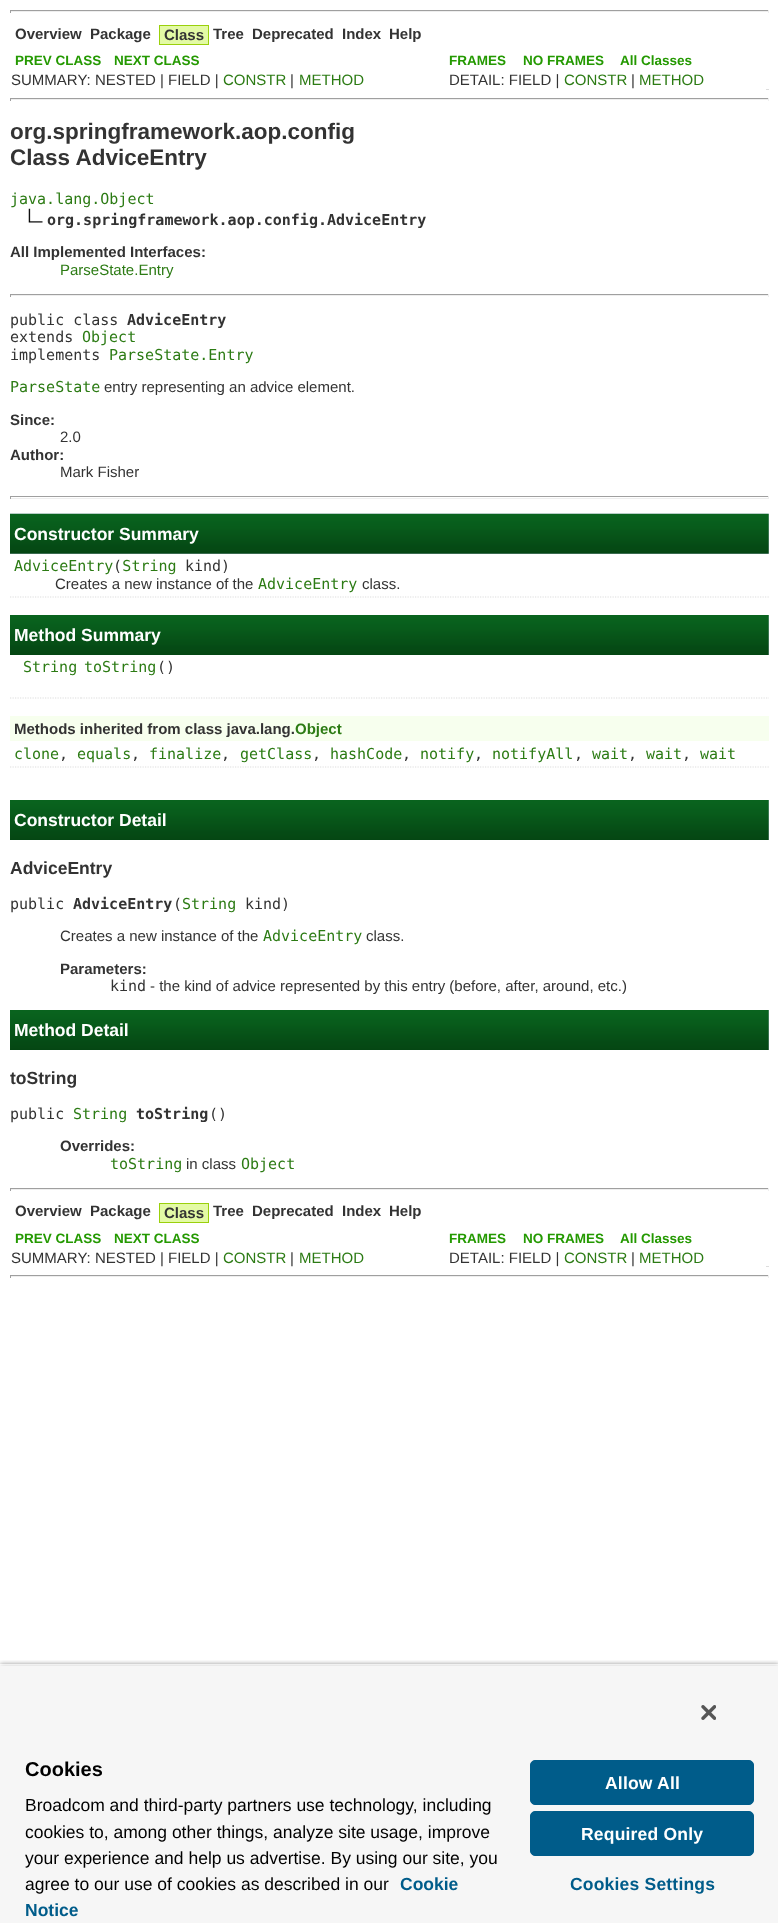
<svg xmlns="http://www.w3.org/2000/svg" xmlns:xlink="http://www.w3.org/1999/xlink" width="778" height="1923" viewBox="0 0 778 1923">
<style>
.cls-1{font:bold 15px Liberation Sans;fill:#333333}
.cls-2{font:bold 13.5px Liberation Sans;fill:#249901}
.cls-3{font:15px Liberation Sans;fill:#333333}
.cls-4{font:15px Liberation Sans;fill:#2c7b14}
.cls-5{font:bold 22.5px Liberation Sans;fill:#333333}
.cls-6{font:15px DejaVu Sans Mono;fill:#2c7b14}
.cls-7{font:bold 15px DejaVu Sans Mono;fill:#333333}
.cls-8{font:15px DejaVu Sans Mono;fill:#333333}
.cls-9{font:bold 17.5px Liberation Sans;fill:#ffffff}
.cls-10{font:bold 15px Liberation Sans;fill:#2c7b14}
.cls-11{font:bold 17.5px Liberation Sans;fill:#333333}
.cls-12{font:bold 20px Liberation Sans;fill:#000000}
.cls-13{font:17.5px Liberation Sans;fill:#000000}
.cls-14{font:bold 17.5px Liberation Sans;fill:#005c8a}
.cls-15{font:bold 17.5px Liberation Sans;letter-spacing:0.2px;fill:#ffffff}
.cls-16{font:bold 17.5px Liberation Sans;letter-spacing:0.2px;fill:#005c8a}
</style>
<defs>
<clipPath id="clip1"><rect x="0" y="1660" width="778" height="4"/></clipPath>
</defs>
<rect width="100%" height="100%" fill="#ffffff"/>
<rect fill="#9f9f9f" x="10" y="10" width="759" height="1"/>
<rect fill="#eeeeee" x="768" y="10" width="1" height="3"/>
<rect fill="#eeeeee" x="10" y="11" width="759" height="1"/>
<rect fill="#9f9f9f" x="10" y="10" width="1" height="3"/>
<rect fill="#e3faa5" stroke="#9ad00c" x="159.5" y="25.5" width="49" height="19"/>
<rect fill="#dddddd" x="766" y="89" width="3" height="1"/>
<rect fill="#9f9f9f" x="10" y="98" width="759" height="1"/>
<rect fill="#eeeeee" x="768" y="98" width="1" height="3"/>
<rect fill="#eeeeee" x="10" y="99" width="759" height="1"/>
<rect fill="#9f9f9f" x="10" y="98" width="1" height="3"/>
<image xlink:href="image0.png" x="28" y="208" width="15" height="15"/>
<rect fill="#9f9f9f" x="10" y="294" width="759" height="1"/>
<rect fill="#eeeeee" x="768" y="294" width="1" height="3"/>
<rect fill="#eeeeee" x="10" y="295" width="759" height="1"/>
<rect fill="#9f9f9f" x="10" y="294" width="1" height="3"/>
<rect fill="#9f9f9f" x="10" y="496" width="759" height="1"/>
<rect fill="#eeeeee" x="768" y="496" width="1" height="3"/>
<rect fill="#eeeeee" x="10" y="498" width="759" height="1"/>
<rect fill="#9f9f9f" x="10" y="496" width="1" height="3"/>
<image xlink:href="image1.png" x="10" y="513" width="759" height="41"/>
<path fill="none" stroke="#dddddd" stroke-width="1.2" stroke-dasharray="1.25 1.25" d="M10 597H769"/>
<image xlink:href="image2.png" x="10" y="615" width="759" height="40"/>
<path fill="none" stroke="#dddddd" stroke-width="1.2" stroke-dasharray="1.25 1.25" d="M10 698H81"/>
<path fill="none" stroke="#dddddd" stroke-width="1.2" stroke-dasharray="1.25 1.25" d="M81 698H769"/>
<rect fill="#f7ffee" x="10" y="716" width="759" height="25"/>
<path fill="none" stroke="#dddddd" stroke-width="1.2" stroke-dasharray="1.25 1.25" d="M10 767H769"/>
<image xlink:href="image3.png" x="10" y="800" width="759" height="40"/>
<image xlink:href="image4.png" x="10" y="1010" width="759" height="40"/>
<rect fill="#9f9f9f" x="10" y="1188" width="759" height="1"/>
<rect fill="#eeeeee" x="768" y="1188" width="1" height="3"/>
<rect fill="#eeeeee" x="10" y="1189" width="759" height="1"/>
<rect fill="#9f9f9f" x="10" y="1188" width="1" height="3"/>
<rect fill="#e3faa5" stroke="#9ad00c" x="159.5" y="1203.5" width="49" height="19"/>
<rect fill="#dddddd" x="766" y="1266" width="3" height="1"/>
<rect fill="#9f9f9f" x="10" y="1275" width="759" height="1"/>
<rect fill="#eeeeee" x="768" y="1275" width="1" height="3"/>
<rect fill="#eeeeee" x="10" y="1276" width="759" height="1"/>
<rect fill="#9f9f9f" x="10" y="1275" width="1" height="3"/>
<g clip-path="url(#clip1)">
<rect fill="#000000" fill-opacity="0.35" filter="blur(2.5px)" x="0" y="1664" width="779" height="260"/>
</g>
<rect fill="#000000" fill-opacity="0.2" filter="blur(2.5px)" x="0" y="1666" width="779" height="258"/>
<rect fill="#f6f6f6" x="0" y="1666" width="778" height="257"/>
<image xlink:href="image5.png" x="701" y="1705" width="15" height="15"/>
<rect fill="#005c8a" stroke="#005c8a" x="530.5" y="1760.5" width="223" height="44" rx="4.5"/>
<rect fill="#005c8a" stroke="#005c8a" x="530.5" y="1811.5" width="223" height="44" rx="4.5"/>
<text class="cls-1" x="15" y="39">Overview</text>
<text class="cls-1" x="90" y="39">Package</text>
<text class="cls-1" x="164" y="40">Class</text>
<text class="cls-1" x="213" y="39">Tree</text>
<text class="cls-1" x="252" y="39">Deprecated</text>
<text class="cls-1" x="342" y="39">Index</text>
<text class="cls-1" x="389" y="39">Help</text>
<text class="cls-2" x="15" y="65">PREV CLASS</text>
<text class="cls-2" x="114" y="65">NEXT CLASS</text>
<text class="cls-2" x="449" y="65">FRAMES</text>
<text class="cls-2" x="523" y="65">NO FRAMES</text>
<text class="cls-2" x="620" y="65">All Classes</text>
<text class="cls-3" x="11" y="85">SUMMARY: NESTED | FIELD |</text>
<text class="cls-4" x="223" y="85">CONSTR</text>
<text class="cls-3" x="290" y="85">|</text>
<text class="cls-4" x="299" y="85">METHOD</text>
<text class="cls-3" x="449" y="85">DETAIL: FIELD |</text>
<text class="cls-4" x="564" y="85">CONSTR</text>
<text class="cls-3" x="631" y="85">|</text>
<text class="cls-4" x="639" y="85">METHOD</text>
<text class="cls-5"><tspan x="10" y="139">org.springframework.aop.config</tspan><tspan x="10" y="165">Class AdviceEntry</tspan></text>
<text class="cls-6" x="10" y="204">java.lang.Object</text>
<text class="cls-7" x="47" y="225">org.springframework.aop.config.AdviceEntry</text>
<text class="cls-1" x="10" y="257">All Implemented Interfaces:</text>
<text class="cls-4" x="60" y="275">ParseState.Entry</text>
<text class="cls-8" x="10" y="325">public class</text>
<text class="cls-7" x="127" y="325">AdviceEntry</text>
<text class="cls-8" x="10" y="342">extends</text>
<text class="cls-6" x="82" y="342">Object</text>
<text class="cls-8" x="10" y="360">implements</text>
<text class="cls-6" x="109" y="360">ParseState.Entry</text>
<text class="cls-6" x="10" y="392">ParseState</text>
<text class="cls-3" x="104" y="392">entry representing an advice element.</text>
<text class="cls-1" x="10" y="425">Since:</text>
<text class="cls-3" x="60" y="442">2.0</text>
<text class="cls-1" x="10" y="460">Author:</text>
<text class="cls-3" x="60" y="477">Mark Fisher</text>
<text class="cls-9" x="14" y="540">Constructor Summary</text>
<text class="cls-6" x="14" y="571">AdviceEntry String</text>
<text class="cls-8" x="113" y="571">(</text>
<text class="cls-8" x="185" y="571">kind)</text>
<text class="cls-3" x="55" y="589">Creates a new instance of the</text>
<text class="cls-6" x="258" y="589">AdviceEntry</text>
<text class="cls-3" x="362" y="589">class.</text>
<text class="cls-9" x="14" y="641">Method Summary</text>
<text class="cls-6" x="23" y="672">String</text>
<text class="cls-6" x="84" y="672">toString</text>
<text class="cls-8" x="157" y="672">()</text>
<text class="cls-1" x="14" y="734">Methods inherited from class java.lang.</text>
<text class="cls-10" x="295" y="734">Object</text>
<text class="cls-6" x="14" y="759">clone</text>
<text class="cls-8" x="59" y="759">,</text>
<text class="cls-6" x="77" y="759">equals</text>
<text class="cls-8" x="131" y="759">,</text>
<text class="cls-6" x="149" y="759">finalize</text>
<text class="cls-8" x="221" y="759">,</text>
<text class="cls-6" x="240" y="759">getClass</text>
<text class="cls-8" x="312" y="759">,</text>
<text class="cls-6" x="330" y="759">hashCode</text>
<text class="cls-8" x="402" y="759">,</text>
<text class="cls-6" x="420" y="759">notify</text>
<text class="cls-8" x="474" y="759">,</text>
<text class="cls-6" x="492" y="759">notifyAll</text>
<text class="cls-8" x="574" y="759">,</text>
<text class="cls-6" x="592" y="759">wait</text>
<text class="cls-8" x="628" y="759">,</text>
<text class="cls-6" x="646" y="759">wait</text>
<text class="cls-8" x="682" y="759">,</text>
<text class="cls-6" x="700" y="759">wait</text>
<text class="cls-9" x="14" y="826">Constructor Detail</text>
<text class="cls-11" x="10" y="874">AdviceEntry</text>
<text class="cls-8" x="10" y="909">public</text>
<text class="cls-7" x="73" y="909">AdviceEntry</text>
<text class="cls-8" x="173" y="909">(</text>
<text class="cls-6" x="182" y="909">String</text>
<text class="cls-8" x="245" y="909">kind)</text>
<text class="cls-3" x="60" y="941">Creates a new instance of the</text>
<text class="cls-6" x="263" y="941">AdviceEntry</text>
<text class="cls-3" x="366" y="941">class.</text>
<text class="cls-1" x="60" y="974">Parameters:</text>
<text class="cls-8" x="110" y="991">kind</text>
<text class="cls-3" x="150" y="991">- the kind of advice represented by this entry (before, after, around, etc.)</text>
<text class="cls-9" x="14" y="1036">Method Detail</text>
<text class="cls-11" x="10" y="1084">toString</text>
<text class="cls-8" x="10" y="1119">public</text>
<text class="cls-6" x="73" y="1119">String</text>
<text class="cls-7" x="136" y="1119">toString</text>
<text class="cls-8" x="209" y="1119">()</text>
<text class="cls-1" x="60" y="1151">Overrides:</text>
<text class="cls-6" x="110" y="1169">toString</text>
<text class="cls-3" x="186" y="1169">in class</text>
<text class="cls-6" x="241" y="1169">Object</text>
<text class="cls-1" x="15" y="1216">Overview</text>
<text class="cls-1" x="90" y="1216">Package</text>
<text class="cls-1" x="164" y="1218">Class</text>
<text class="cls-1" x="213" y="1216">Tree</text>
<text class="cls-1" x="252" y="1216">Deprecated</text>
<text class="cls-1" x="342" y="1216">Index</text>
<text class="cls-1" x="389" y="1216">Help</text>
<text class="cls-2" x="15" y="1243">PREV CLASS</text>
<text class="cls-2" x="114" y="1243">NEXT CLASS</text>
<text class="cls-2" x="449" y="1243">FRAMES</text>
<text class="cls-2" x="523" y="1243">NO FRAMES</text>
<text class="cls-2" x="620" y="1243">All Classes</text>
<text class="cls-3" x="11" y="1263">SUMMARY: NESTED | FIELD |</text>
<text class="cls-4" x="223" y="1263">CONSTR</text>
<text class="cls-3" x="290" y="1263">|</text>
<text class="cls-4" x="299" y="1263">METHOD</text>
<text class="cls-3" x="449" y="1263">DETAIL: FIELD |</text>
<text class="cls-4" x="564" y="1263">CONSTR</text>
<text class="cls-3" x="631" y="1263">|</text>
<text class="cls-4" x="639" y="1263">METHOD</text>
<text class="cls-12" x="25" y="1776">Cookies</text>
<text class="cls-13"><tspan x="25" y="1811">Broadcom and third-party partners use technology, including</tspan><tspan x="25" y="1838">cookies to, among other things, analyze site usage, improve</tspan><tspan x="25" y="1864">your experience and help us advertise. By using our site, you</tspan><tspan x="25" y="1890">agree to our use of cookies as described in our</tspan></text>
<text class="cls-14" x="400" y="1890">Cookie</text>
<text class="cls-14" x="25" y="1916">Notice</text>
<text class="cls-15" x="605" y="1789">Allow All</text>
<text class="cls-15" x="581" y="1840">Required Only</text>
<text class="cls-16" x="570" y="1890">Cookies Settings</text>
</svg>
